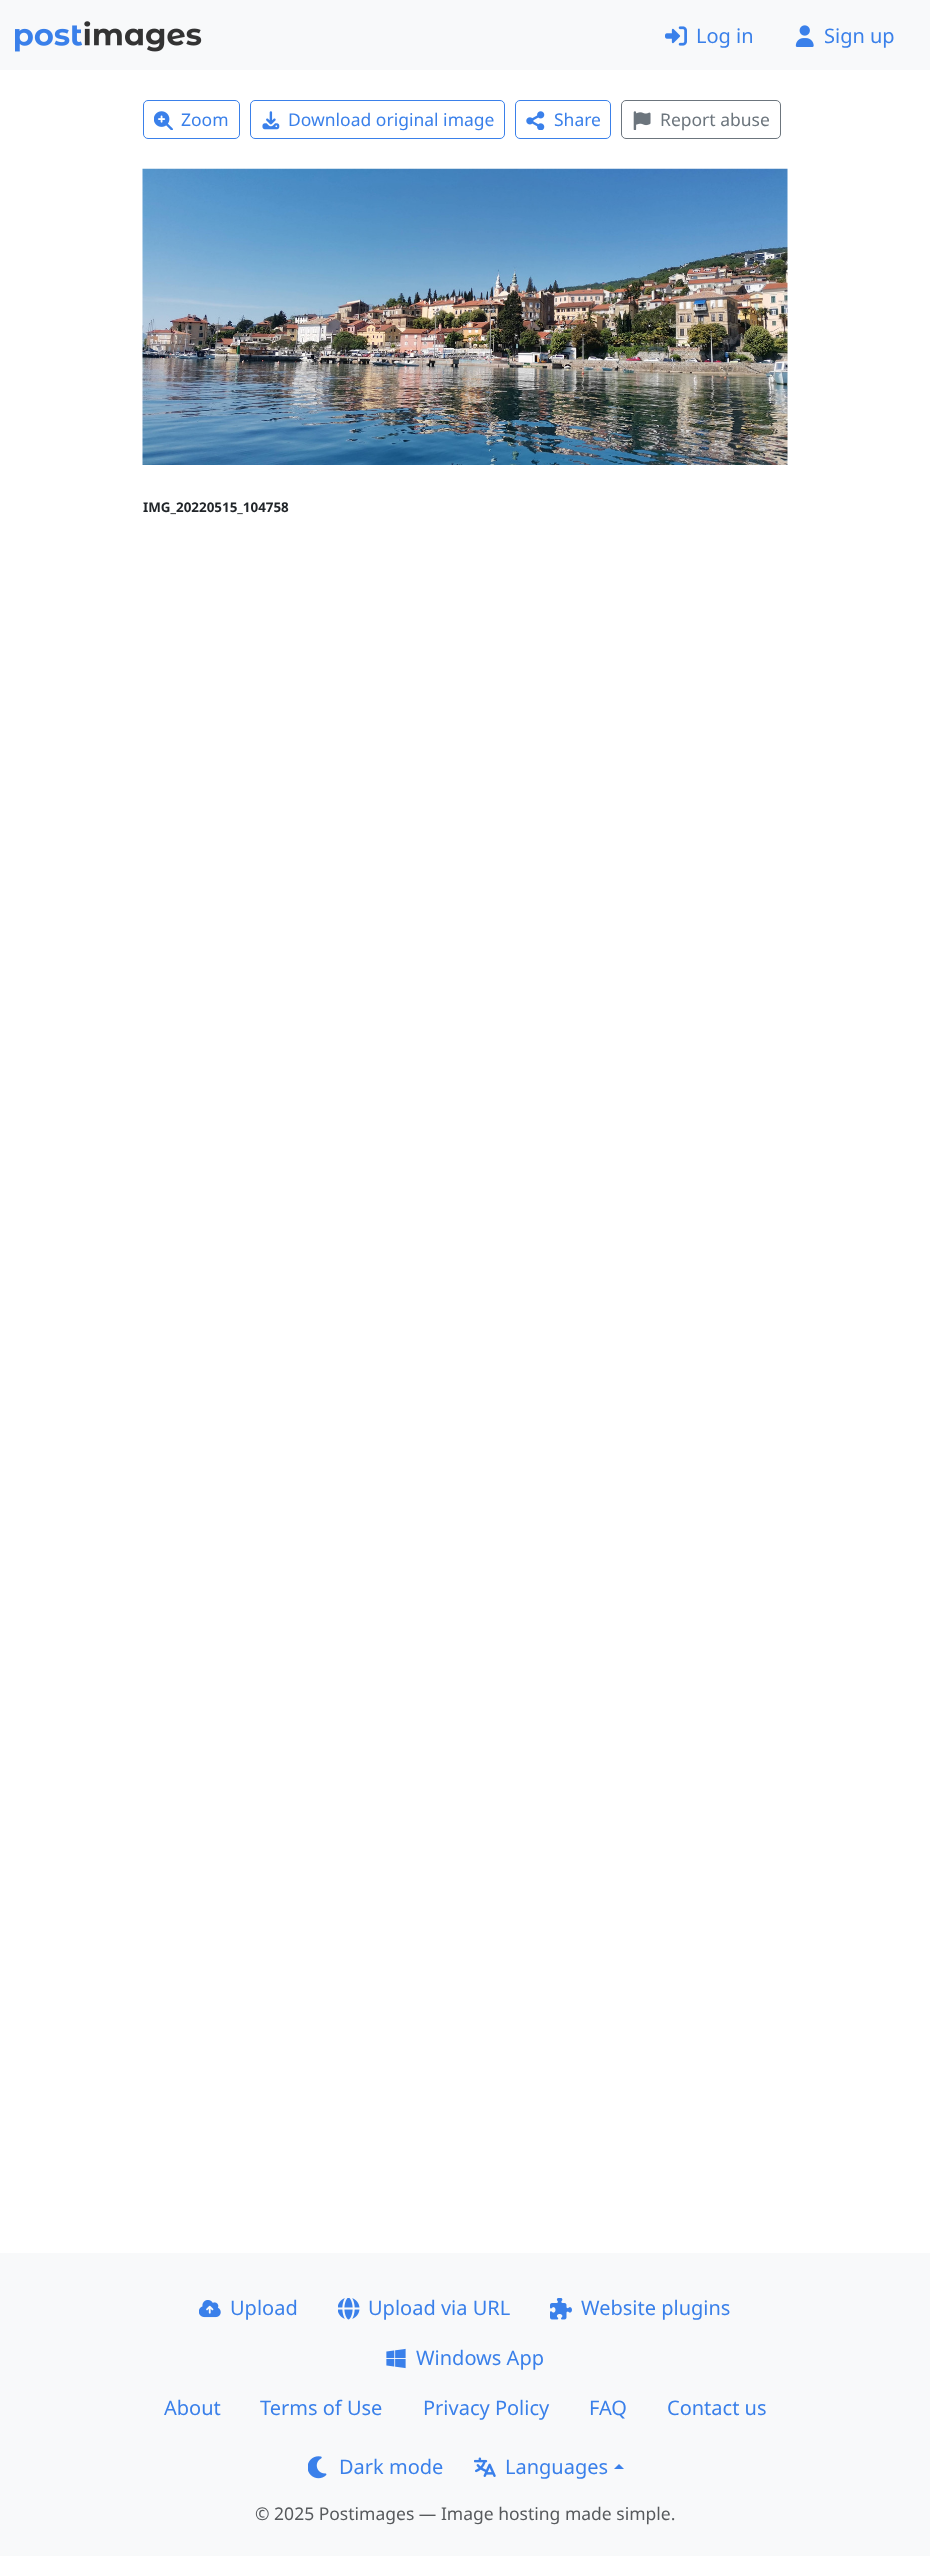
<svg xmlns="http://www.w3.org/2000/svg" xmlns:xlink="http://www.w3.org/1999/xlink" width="930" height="2556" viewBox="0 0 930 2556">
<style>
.cls-1{font:20px Noto Sans;fill:#3a80ea}
.cls-2{font:17.5px Noto Sans;fill:#3a80ea}
.cls-3{font:17.5px Noto Sans;fill:#6c757d}
.cls-4{font:bold 13.4px Noto Sans;fill:#212529}
.cls-5{font:17.5px Noto Sans;fill:#575a5d}
</style>
<rect width="100%" height="100%" fill="#ffffff"/>
<rect fill="#f8f9fa" x="0" y="0" width="930" height="70"/>
<image xlink:href="image0.png" x="15" y="21" width="187" height="31"/>
<image xlink:href="image1.png" x="665" y="26" width="22" height="20"/>
<image xlink:href="image2.png" x="795" y="25" width="19" height="22"/>
<rect fill="none" stroke="#3a80ea" x="143.5" y="100.5" width="96" height="38" rx="4.5"/>
<image xlink:href="image3.png" x="154" y="111" width="19" height="19"/>
<rect fill="none" stroke="#3a80ea" x="250.5" y="100.5" width="254" height="38" rx="4.5"/>
<image xlink:href="image4.png" x="262" y="111" width="18" height="19"/>
<rect fill="none" stroke="#3a80ea" x="515.5" y="100.5" width="95" height="38" rx="4.5"/>
<image xlink:href="image5.png" x="526" y="111" width="19" height="19"/>
<rect fill="none" stroke="#6c757d" x="621.5" y="100.5" width="159" height="38" rx="4.5"/>
<image xlink:href="image6.png" x="633" y="111" width="18" height="19"/>
<image xlink:href="image7.png" x="142" y="168" width="646" height="297"/>
<rect fill="#f8f9fa" x="0" y="2253" width="930" height="303"/>
<image xlink:href="image8.png" x="199" y="2300" width="22" height="18"/>
<image xlink:href="image9.png" x="338" y="2298" width="22" height="22"/>
<image xlink:href="image10.png" x="550" y="2298" width="22" height="22"/>
<image xlink:href="image11.png" x="386" y="2348" width="20" height="21"/>
<image xlink:href="image12.png" x="308" y="2456" width="19" height="23"/>
<image xlink:href="image13.png" x="474" y="2457" width="22" height="20"/>
<path fill="#3a80ea" d="M624 2469H614L619 2464Z"/>
<text class="cls-1" x="696" y="43">Log in</text>
<text class="cls-1" x="824" y="43">Sign up</text>
<text class="cls-2" x="181" y="126">Zoom</text>
<text class="cls-2" x="288" y="126">Download original image</text>
<text class="cls-2" x="554" y="126">Share</text>
<text class="cls-3" x="660" y="126">Report abuse</text>
<text class="cls-4" x="143" y="512">IMG_20220515_104758</text>
<text class="cls-1" x="230" y="2315">Upload</text>
<text class="cls-1" x="368" y="2315">Upload via URL</text>
<text class="cls-1" x="581" y="2315">Website plugins</text>
<text class="cls-1" x="416" y="2365">Windows App</text>
<text class="cls-1" x="164" y="2415">About</text>
<text class="cls-1" x="260" y="2415">Terms of Use</text>
<text class="cls-1" x="423" y="2415">Privacy Policy</text>
<text class="cls-1" x="589" y="2415">FAQ</text>
<text class="cls-1" x="667" y="2415">Contact us</text>
<text class="cls-1" x="339" y="2474">Dark mode</text>
<text class="cls-1" x="505" y="2474">Languages</text>
<text class="cls-5" x="255" y="2520">© 2025 Postimages — Image hosting made simple.</text>
</svg>
